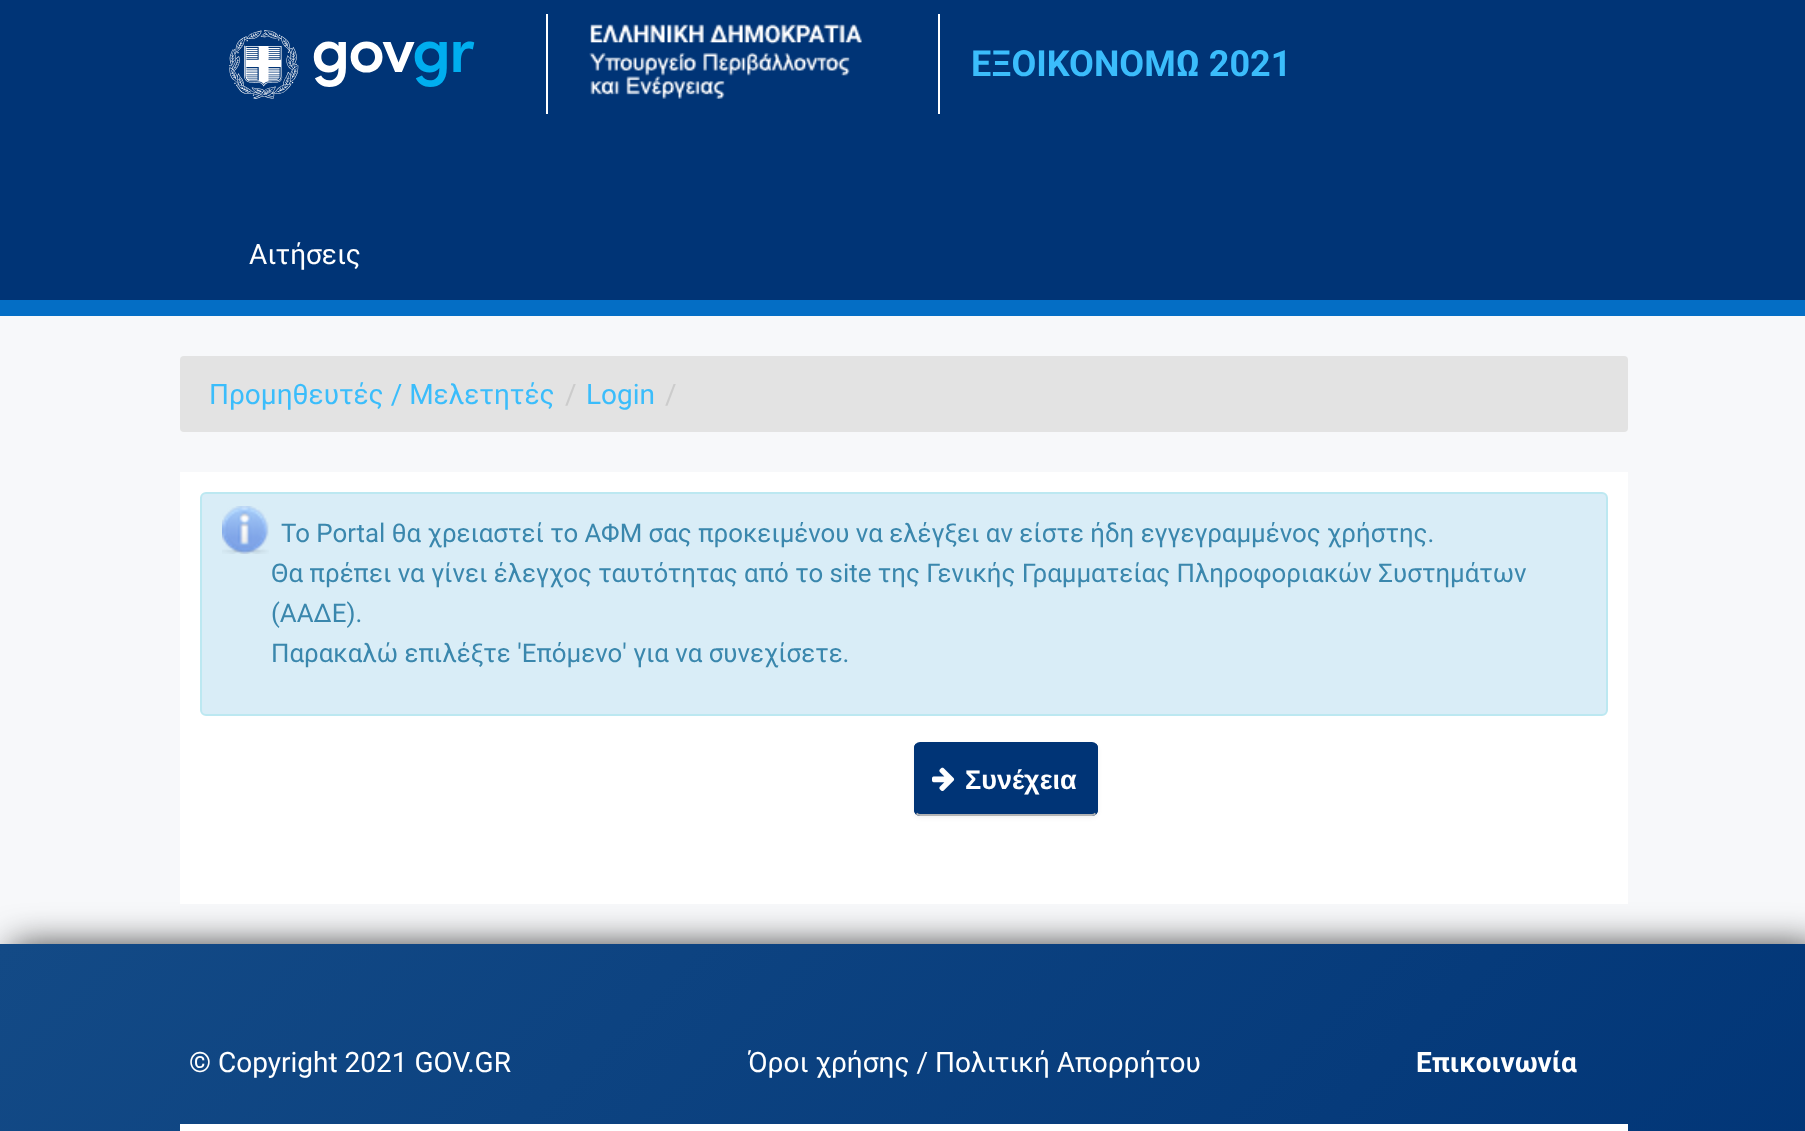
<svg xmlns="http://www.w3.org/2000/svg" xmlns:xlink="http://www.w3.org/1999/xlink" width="1805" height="1131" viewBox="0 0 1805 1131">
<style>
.cls-1{font:bold 36px Roboto;fill:#3bbdfb}
.cls-2{font:28px Roboto;fill:#ffffff}
.cls-3{font:28px Roboto;fill:#3bbdfb}
.cls-4{font:28px Roboto;fill:#cccccc}
.cls-5{font:25.85px Roboto;fill:#3a87ad}
.cls-6{font:bold 27px Liberation Sans;fill:#ffffff}
.cls-7{font:bold 28px Roboto;fill:#ffffff}
</style>
<defs>
<clipPath id="clip1"><rect x="914" y="742" width="184" height="74" rx="6"/></clipPath>
<linearGradient id="g1" gradientUnits="userSpaceOnUse" x1="1452" y1="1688" x2="354" y2="590"><stop offset="0" stop-color="#003476"/><stop offset="1" stop-color="#134a86"/></linearGradient>
</defs>
<rect width="100%" height="100%" fill="#003476"/>
<image xlink:href="image0.png" x="229" y="30" width="246" height="69"/>
<rect fill="#ffffff" x="546" y="14" width="2" height="100"/>
<image xlink:href="image1.png" x="589" y="24" width="273" height="75"/>
<rect fill="#ffffff" x="938" y="14" width="2" height="100"/>
<rect fill="#046ec5" x="0" y="300" width="1805" height="16"/>
<rect fill="#f7f8fa" x="0" y="316" width="1805" height="628"/>
<rect fill="#e3e3e3" x="180" y="356" width="1448" height="76" rx="4"/>
<rect fill="#333333" filter="blur(18px)" x="12" y="946" width="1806" height="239"/>
<rect fill="#ffffff" x="180" y="472" width="1448" height="432"/>
<rect fill="#d9edf7" stroke="#bce8f1" stroke-width="2" x="201" y="493" width="1406" height="222" rx="5"/>
<image xlink:href="image2.png" x="222" y="506" width="47" height="48"/>
<rect fill="#000000" fill-opacity="0.05" filter="blur(2px)" x="914" y="744" width="184" height="74" rx="6"/>
<rect fill="#003476" x="914" y="742" width="184" height="74" rx="6"/>
<g clip-path="url(#clip1)">
<rect fill="#003476" x="914" y="744" width="184" height="70"/>
</g>
<path fill="none" stroke="#b3b3b3" stroke-width="2" d="M1095.5 813.5C1094.5 814.5 1093.5 815 1092 815H920C918.5 815 917.5 814.5 916.5 813.5"/>
<image xlink:href="image3.png" x="932" y="767" width="23" height="24"/>
<rect fill="url(#g1)" x="0" y="944" width="1805" height="187"/>
<rect fill="#ffffff" x="180" y="1124" width="1448" height="7"/>
<text class="cls-1" x="971" y="76">ΕΞΟΙΚΟΝΟΜΩ 2021</text>
<text class="cls-2" x="249" y="264">Αιτήσεις</text>
<text class="cls-3" x="209" y="404">Προμηθευτές / Μελετητές</text>
<text class="cls-4" x="565" y="404">/</text>
<text class="cls-3" x="586" y="404">Login</text>
<text class="cls-4" x="665" y="404">/</text>
<text class="cls-5" x="281" y="542">Το Portal θα χρειαστεί το ΑΦΜ σας προκειμένου να ελέγξει αν είστε ήδη εγγεγραμμένος χρήστης.</text>
<text class="cls-5"><tspan x="271" y="582">Θα πρέπει να γίνει έλεγχος ταυτότητας από το site της Γενικής Γραμματείας Πληροφοριακών Συστημάτων</tspan><tspan x="271" y="622">(ΑΑΔΕ).</tspan><tspan x="271" y="662">Παρακαλώ επιλέξτε 'Επόμενο' για να συνεχίσετε.</tspan></text>
<text class="cls-6" x="965" y="789">Συνέχεια</text>
<text class="cls-2" x="189" y="1072">© Copyright 2021 GOV.GR</text>
<text class="cls-2" x="748" y="1072">Όροι χρήσης / Πολιτική Απορρήτου</text>
<text class="cls-7" x="1416" y="1072">Επικοινωνία</text>
</svg>
